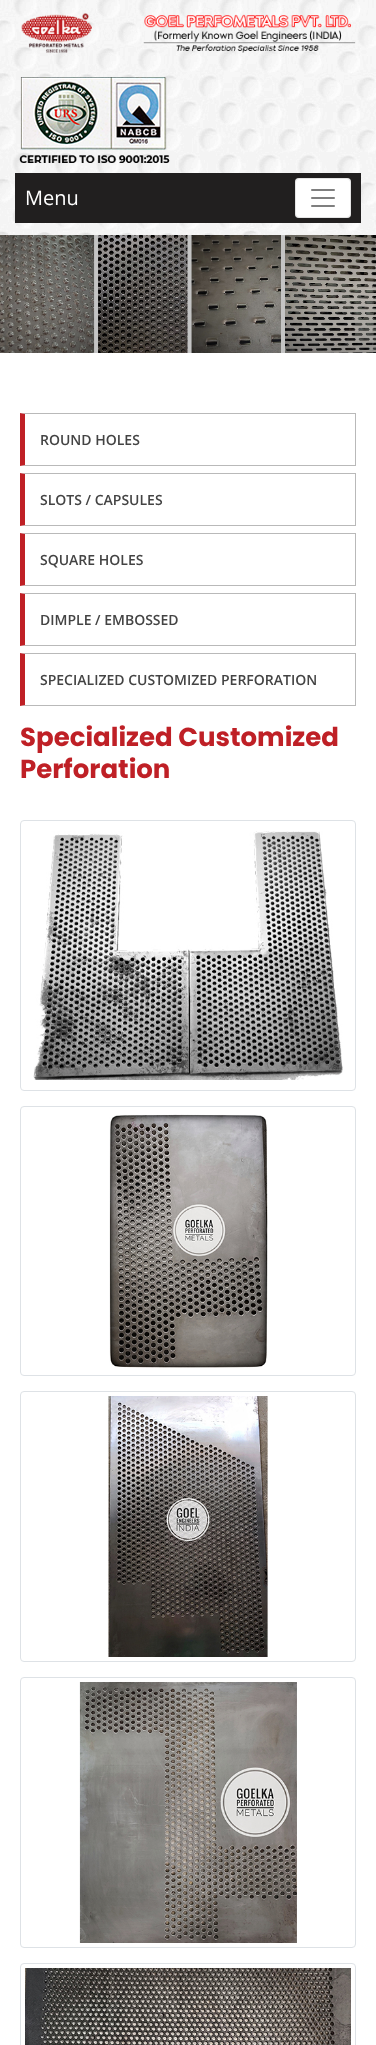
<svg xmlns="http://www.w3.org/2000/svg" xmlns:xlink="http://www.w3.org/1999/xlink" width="376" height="2045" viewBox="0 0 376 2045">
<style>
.cls-1{font:20px Open Sans;fill:#ffffff}
.cls-2{font:600 14px Open Sans;fill:#444444}
.cls-3{font:bold 26px Poppins;fill:#bf2026}
</style>
<rect width="100%" height="100%" fill="#ffffff"/>
<image xlink:href="image0.png" x="0" y="0" width="376" height="235"/>
<image xlink:href="image1.png" x="21" y="13" width="335" height="40"/>
<image xlink:href="image2.png" x="19" y="77" width="151" height="86"/>
<rect fill="#211f1f" x="15" y="173" width="346" height="50"/>
<rect fill="#ffffff" x="295" y="178" width="56" height="40" rx="4"/>
<rect fill="none" stroke="#000000" stroke-opacity="0.1" x="295.5" y="178.5" width="55" height="39" rx="3.5"/>
<image xlink:href="image3.png" x="311" y="189" width="24" height="18"/>
<image xlink:href="image4.png" x="0" y="235" width="376" height="118"/>
<path fill="#b9b9b9" d="M20 413H356L355 414H25Z"/>
<rect fill="#b9b9b9" x="355" y="413" width="1" height="53"/>
<path fill="#b9b9b9" d="M356 466H20L25 465H355Z"/>
<path fill="#bf2026" d="M20 466V413L25 414V465Z"/>
<path fill="#b9b9b9" d="M20 473H356L355 474H25Z"/>
<rect fill="#b9b9b9" x="355" y="473" width="1" height="53"/>
<path fill="#b9b9b9" d="M356 526H20L25 525H355Z"/>
<path fill="#bf2026" d="M20 526V473L25 474V525Z"/>
<path fill="#b9b9b9" d="M20 533H356L355 534H25Z"/>
<rect fill="#b9b9b9" x="355" y="533" width="1" height="53"/>
<path fill="#b9b9b9" d="M356 586H20L25 585H355Z"/>
<path fill="#bf2026" d="M20 586V533L25 534V585Z"/>
<path fill="#b9b9b9" d="M20 593H356L355 594H25Z"/>
<rect fill="#b9b9b9" x="355" y="593" width="1" height="53"/>
<path fill="#b9b9b9" d="M356 646H20L25 645H355Z"/>
<path fill="#bf2026" d="M20 646V593L25 594V645Z"/>
<path fill="#b9b9b9" d="M20 653H356L355 654H25Z"/>
<rect fill="#b9b9b9" x="355" y="653" width="1" height="53"/>
<path fill="#b9b9b9" d="M356 706H20L25 705H355Z"/>
<path fill="#bf2026" d="M20 706V653L25 654V705Z"/>
<rect fill="none" stroke="#dee2e6" x="20.5" y="820.5" width="335" height="270" rx="3.5"/>
<image xlink:href="image5.png" x="33" y="831" width="310" height="249"/>
<rect fill="none" stroke="#dee2e6" x="20.5" y="1106.5" width="335" height="269" rx="3.5"/>
<image xlink:href="image6.png" x="109" y="1114" width="159" height="254"/>
<rect fill="none" stroke="#dee2e6" x="20.5" y="1391.5" width="335" height="270" rx="3.5"/>
<image xlink:href="image7.png" x="108" y="1396" width="160" height="261"/>
<rect fill="none" stroke="#dee2e6" x="20.5" y="1677.5" width="335" height="270" rx="3.5"/>
<image xlink:href="image8.png" x="79" y="1682" width="218" height="261"/>
<rect fill="none" stroke="#dee2e6" x="20.5" y="1963.5" width="335" height="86" rx="3.5"/>
<image xlink:href="image9.png" x="25" y="1968" width="326" height="77"/>
<text class="cls-1" x="25" y="205">Menu</text>
<text class="cls-2" x="40" y="445">ROUND HOLES</text>
<text class="cls-2" x="40" y="505">SLOTS / CAPSULES</text>
<text class="cls-2" x="40" y="565">SQUARE HOLES</text>
<text class="cls-2" x="40" y="625">DIMPLE / EMBOSSED</text>
<text class="cls-2" x="40" y="685">SPECIALIZED CUSTOMIZED PERFORATION</text>
<text class="cls-3"><tspan x="20" y="746">Specialized Customized</tspan><tspan x="20" y="778">Perforation</tspan></text>
</svg>
